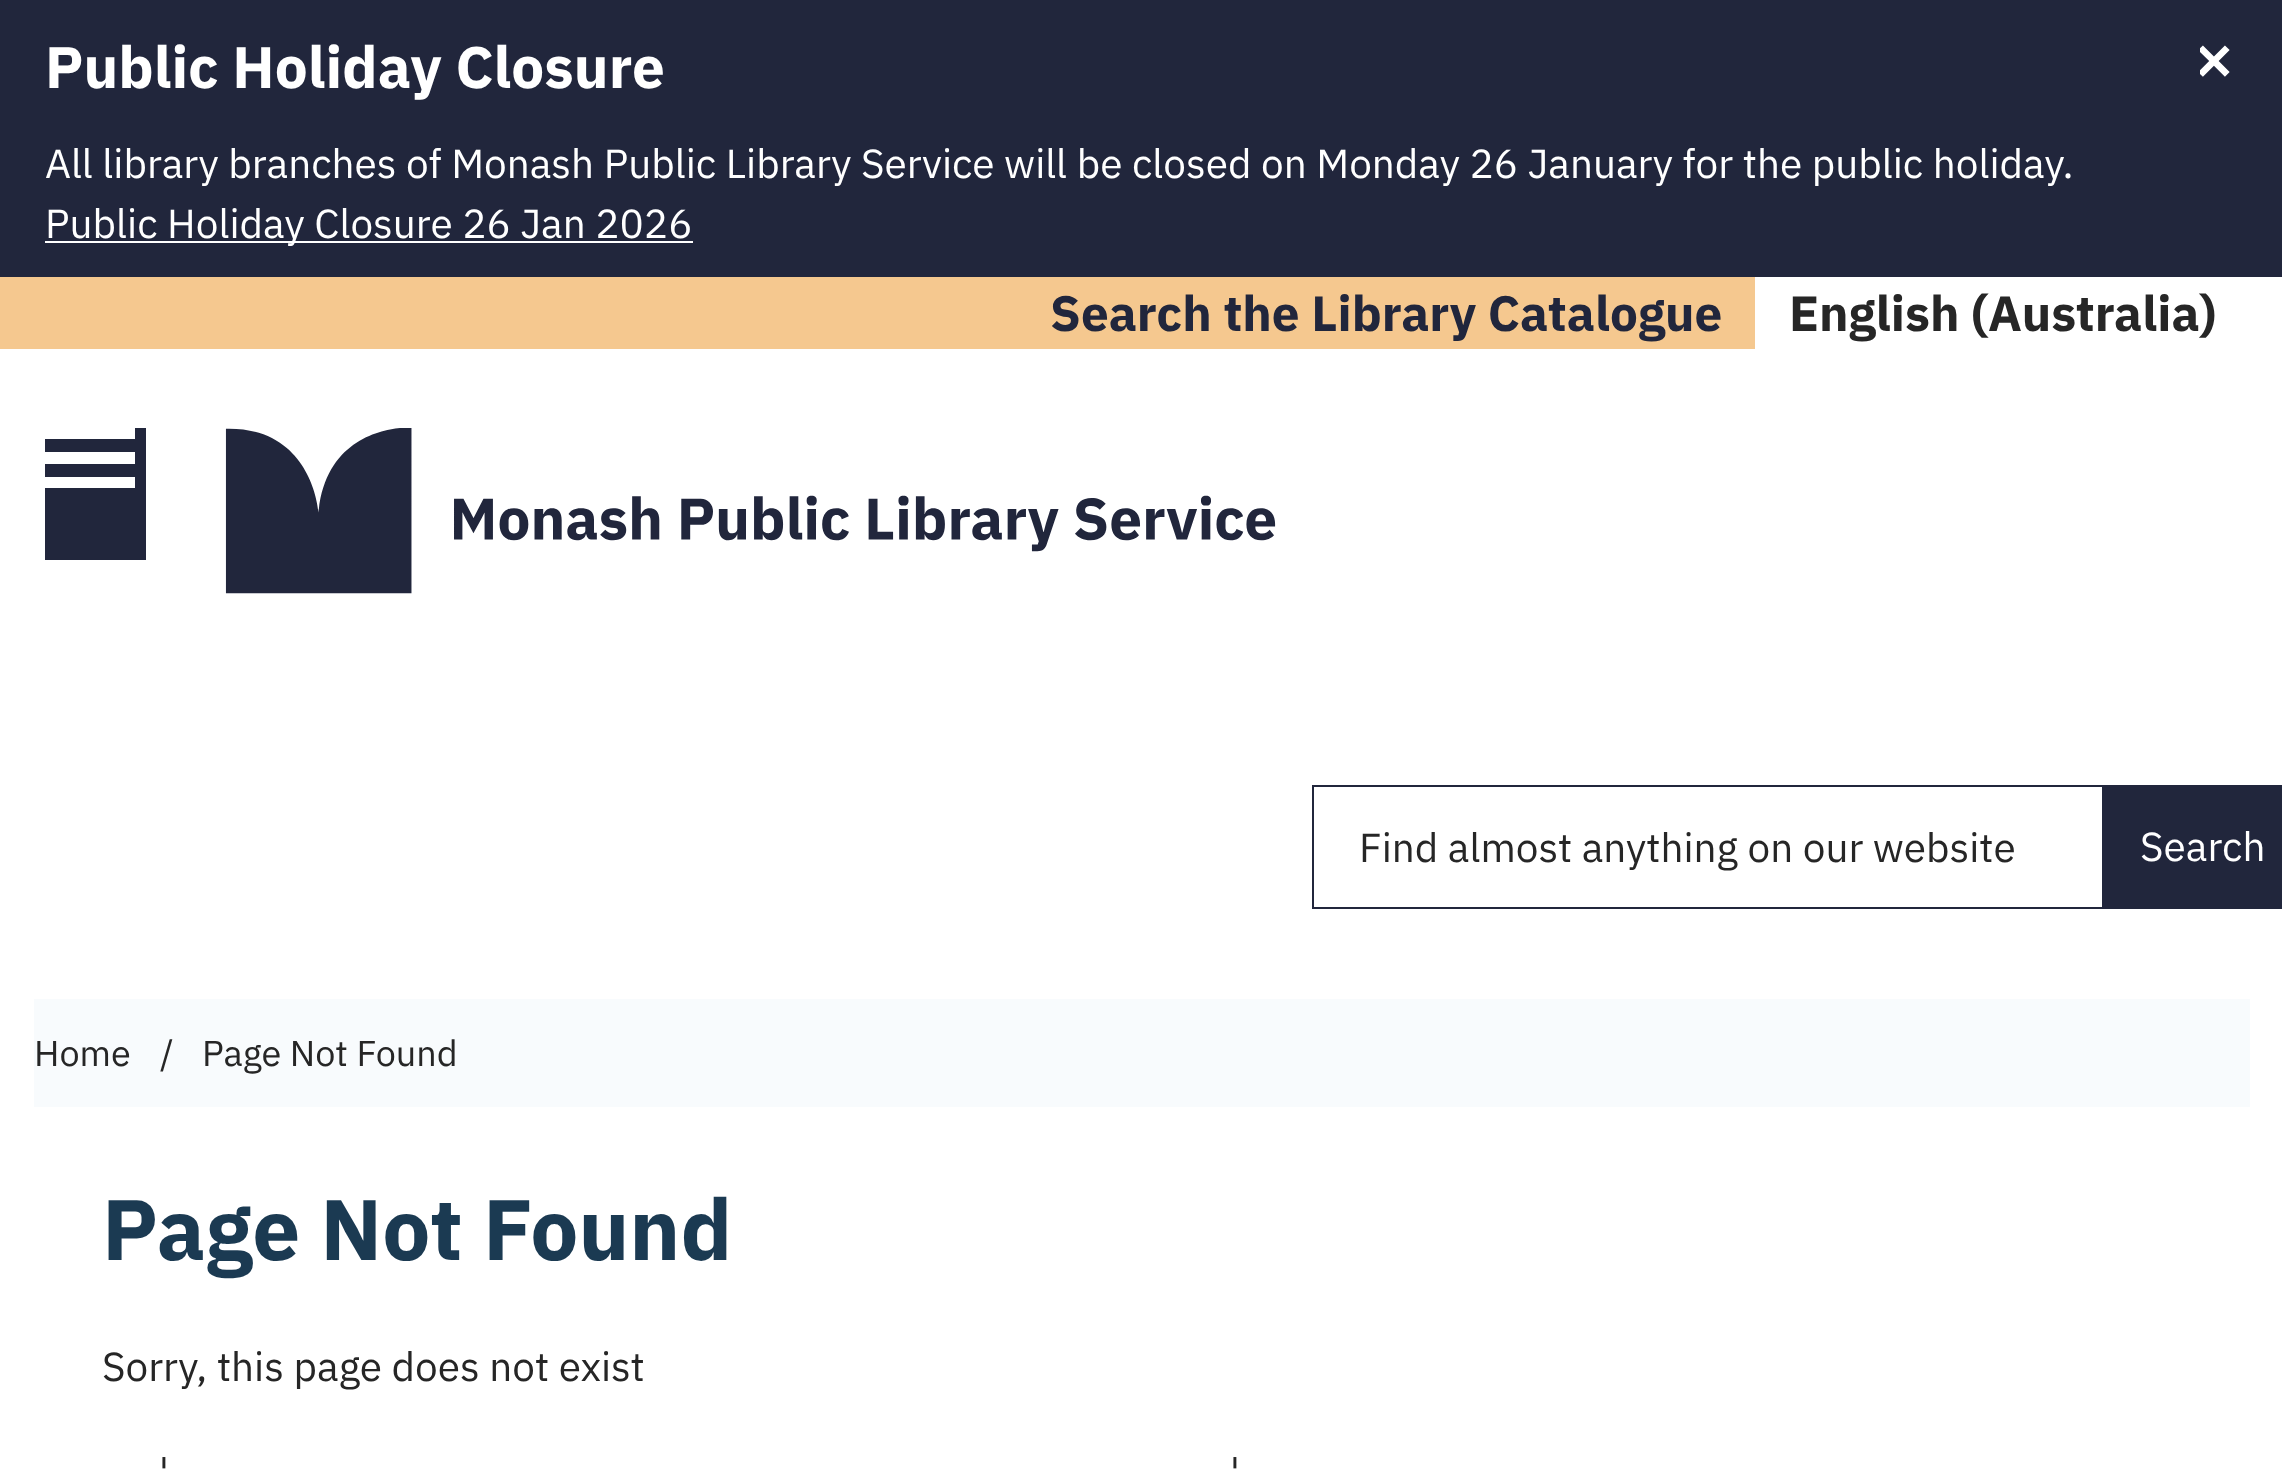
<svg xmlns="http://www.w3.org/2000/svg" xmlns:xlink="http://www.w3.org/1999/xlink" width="2282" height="1476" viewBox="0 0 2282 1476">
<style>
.cls-1{font:bold 58.5px IBM Plex Sans;fill:#ffffff}
.cls-2{font:40.5px IBM Plex Sans;fill:#ffffff}
.cls-3{font:bold 49.5px IBM Plex Sans;fill:#21263c}
.cls-4{font:bold 49.5px IBM Plex Sans;fill:#262626}
.cls-5{font:40.5px IBM Plex Sans;fill:#262626}
.cls-6{font:36px IBM Plex Sans;fill:#262626}
.cls-7{font:bold 85.5px IBM Plex Sans;fill:#1b3a52}
</style>
<rect width="100%" height="100%" fill="#ffffff"/>
<rect fill="#21263c" x="0" y="0" width="2282" height="277"/>
<image xlink:href="image0.png" x="2200" y="45" width="30" height="32"/>
<rect fill="#ffffff" x="45" y="241" width="648" height="2"/>
<rect fill="#f5c88f" x="0" y="277" width="1755" height="72"/>
<rect fill="#21263c" x="45" y="428" width="101" height="132"/>
<rect fill="#ffffff" x="45" y="452" width="90" height="12"/>
<rect fill="#ffffff" x="45" y="428" width="90" height="11"/>
<rect fill="#ffffff" x="45" y="477" width="90" height="11"/>
<image xlink:href="image1.png" x="225" y="428" width="1051" height="166"/>
<rect fill="none" stroke="#21263c" stroke-width="2" x="1313" y="786" width="790" height="122"/>
<rect fill="#21263c" x="2104" y="785" width="178" height="124"/>
<rect fill="#f8fbfd" x="34" y="999" width="2216" height="108"/>
<text class="cls-1" x="45" y="88">Public Holiday Closure</text>
<text class="cls-2"><tspan x="45" y="178">All library branches of Monash Public Library Service will be closed on Monday 26 January for the public holiday.</tspan><tspan x="45" y="238">Public Holiday Closure 26 Jan 2026</tspan></text>
<text class="cls-3" x="1050" y="331">Search the Library Catalogue</text>
<text class="cls-4" x="1789" y="331">English (Australia)</text>
<text class="cls-5" x="1359" y="862">Find almost anything on our website</text>
<text class="cls-2" x="2140" y="861">Search</text>
<text class="cls-6" x="34" y="1066">Home</text>
<text class="cls-6" x="160" y="1066">/</text>
<text class="cls-6" x="202" y="1066">Page Not Found</text>
<text class="cls-7" x="102" y="1260">Page Not Found</text>
<text class="cls-5" x="102" y="1381">Sorry, this page does not exist</text>
<text class="cls-5" x="159" y="1487">'</text>
<text class="cls-5" x="1230" y="1487">'</text>
</svg>
